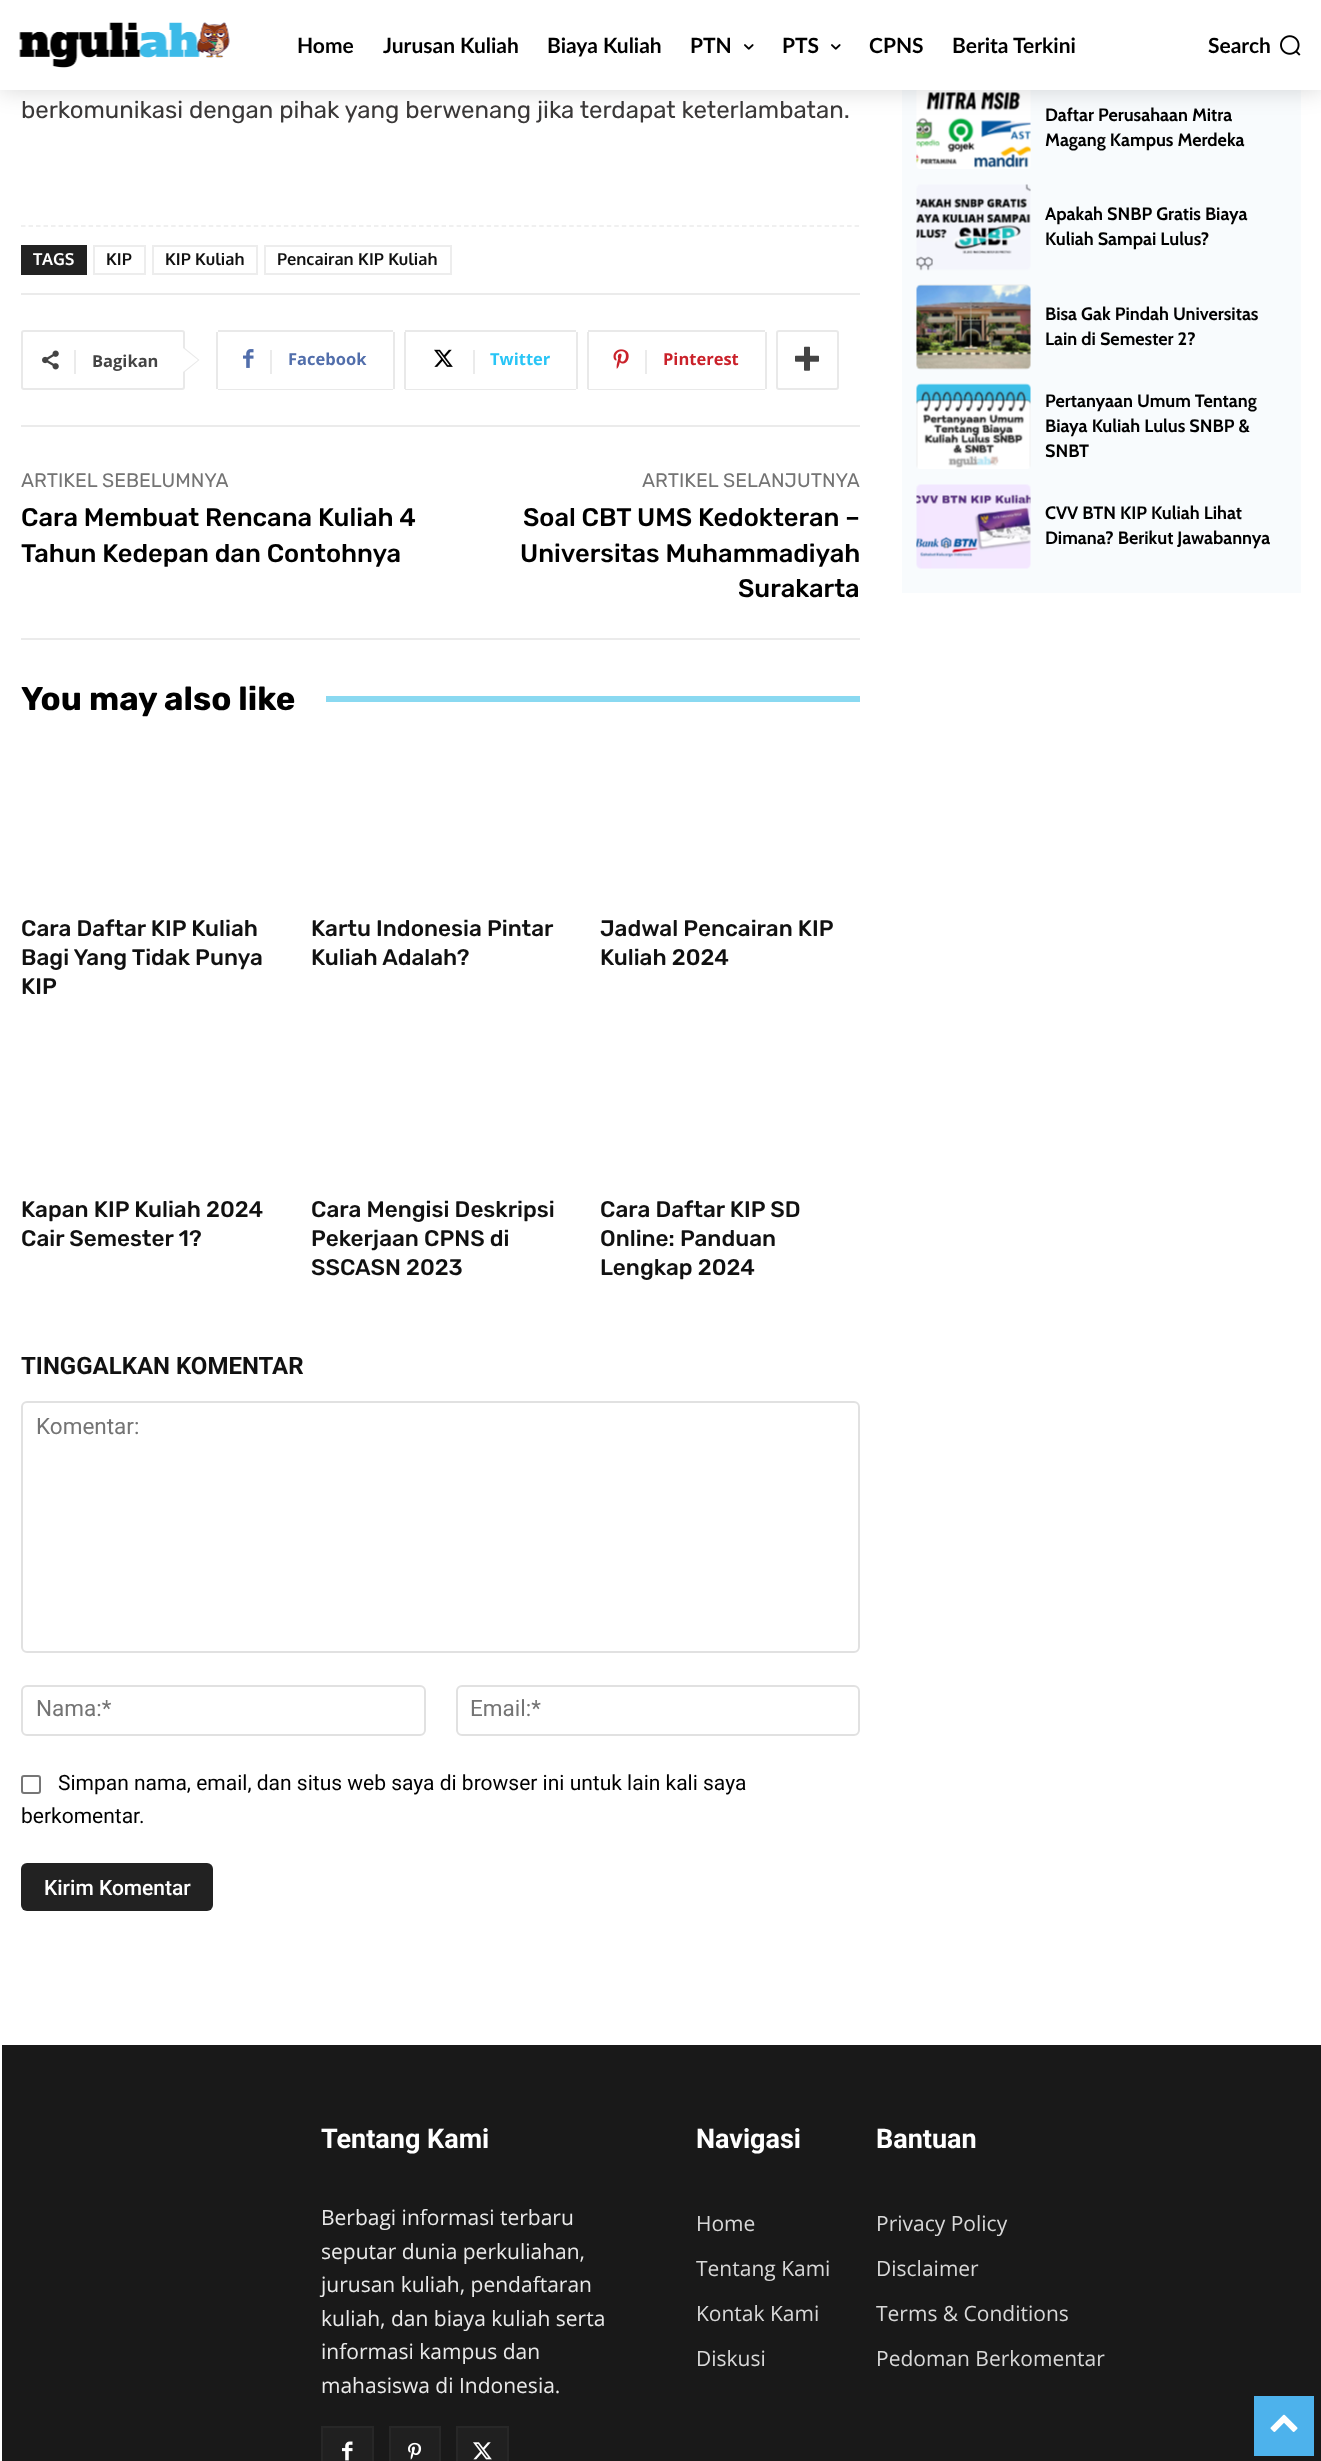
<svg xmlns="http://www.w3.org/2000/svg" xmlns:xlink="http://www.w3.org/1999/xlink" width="1321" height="2461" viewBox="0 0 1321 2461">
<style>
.cls-1{font:bold 21px Lato;fill:#000000}
.cls-2{font:24px Rubik;fill:#3a3838}
.cls-3{font:bold 16.5px Oxygen;fill:#ffffff}
.cls-4{font:bold 16.5px Oxygen;fill:#111111}
.cls-5{font:bold 16.5px Open Sans;fill:#444444}
.cls-6{font:bold 16.5px Open Sans;fill:#516eab}
.cls-7{font:bold 16.5px Open Sans;fill:#29c5f6}
.cls-8{font:bold 16.5px Open Sans;fill:#ca212a}
.cls-9{font:19.5px Rubik;fill:#747474}
.cls-10{font:500 25.5px Rubik;fill:#000000}
.cls-11{font:bold 33px Rubik;fill:#000000}
.cls-12{font:500 22.5px Rubik;fill:#111111}
.cls-13{font:bold 24px Roboto;fill:#111111}
.cls-14{font:22.5px Roboto;fill:#747474}
.cls-15{font:21px Roboto;fill:#000000}
.cls-16{font:500 21px Roboto;fill:#ffffff}
.cls-17{font:bold 18px Cabin;fill:#000000}
.cls-18{font:bold 27px Roboto;fill:#ffffff}
.cls-19{font:21px Open Sans;fill:#eaeaea}
.cls-20{font:21px Open Sans;fill:#d8d8d8}
</style>
<rect width="100%" height="100%" fill="#ffffff"/>
<rect fill="#f8fbfd" x="902" y="90" width="399" height="503"/>
<image xlink:href="image8.png" x="916" y="90" width="115" height="79"/>
<rect fill="#000000" fill-opacity="0.16" filter="blur(12px)" x="0" y="0" width="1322" height="90"/>
<rect fill="#ffffff" x="0" y="0" width="1321" height="90"/>
<image xlink:href="image0.png" x="19" y="22" width="211" height="46"/>
<image xlink:href="image1.png" x="744" y="44" width="10" height="6"/>
<image xlink:href="image1.png" x="831" y="44" width="10" height="6"/>
<image xlink:href="image2.png" x="1280" y="35" width="21" height="21"/>
<path fill="none" stroke="#ebebeb" stroke-width="1.5" stroke-dasharray="4.5 3.01" d="M21 226H859.5"/>
<rect fill="#222222" x="21" y="245" width="66" height="30"/>
<rect fill="none" stroke="#ededed" stroke-width="2" x="94" y="246" width="51" height="28"/>
<rect fill="none" stroke="#ededed" stroke-width="2" x="153" y="246" width="104" height="28"/>
<rect fill="none" stroke="#ededed" stroke-width="2" x="265" y="246" width="186" height="28"/>
<rect fill="#ebebeb" x="21" y="293" width="839" height="2"/>
<rect fill="none" stroke="#e9e9e9" stroke-width="2" x="22" y="331" width="162" height="58" rx="2"/>
<path fill="#e9e9e9" d="M183 373.5V346.5L199.5 360Z"/>
<image xlink:href="image3.png" x="42" y="350" width="17" height="20"/>
<rect fill="#ebebeb" x="74" y="350" width="2" height="24"/>
<path fill="#ffffff" d="M183 372V348L198 360Z"/>
<rect fill="#e9e9e9" x="216" y="332" width="2" height="57"/>
<image xlink:href="image4.png" x="243" y="349" width="11" height="19"/>
<rect fill="#e9e9e9" x="218" y="330" width="175" height="2"/>
<rect fill="#e9e9e9" x="393" y="332" width="2" height="57"/>
<rect fill="#e9e9e9" x="218" y="389" width="175" height="1"/>
<rect fill="#ebebeb" x="270" y="350" width="2" height="24"/>
<rect fill="#e9e9e9" x="404" y="332" width="2" height="57"/>
<image xlink:href="image5.png" x="434" y="349" width="19" height="18"/>
<rect fill="#e9e9e9" x="405" y="330" width="171" height="2"/>
<rect fill="#e9e9e9" x="576" y="332" width="2" height="57"/>
<rect fill="#e9e9e9" x="405" y="389" width="171" height="1"/>
<rect fill="#ebebeb" x="473" y="350" width="2" height="24"/>
<rect fill="#e9e9e9" x="587" y="332" width="2" height="57"/>
<image xlink:href="image6.png" x="613" y="349" width="16" height="20"/>
<rect fill="#e9e9e9" x="588" y="330" width="177" height="2"/>
<rect fill="#e9e9e9" x="765" y="332" width="2" height="57"/>
<rect fill="#e9e9e9" x="588" y="389" width="177" height="1"/>
<rect fill="#ebebeb" x="645" y="350" width="2" height="24"/>
<rect fill="none" stroke="#e9e9e9" stroke-width="2" x="777" y="331" width="61" height="58" rx="2"/>
<image xlink:href="image7.png" x="795" y="346" width="24" height="25"/>
<rect fill="#ebebeb" x="21" y="425" width="839" height="2"/>
<rect fill="#ebebeb" x="21" y="638" width="839" height="2"/>
<rect fill="#8ad9f1" x="326" y="696" width="534" height="6"/>
<rect fill="none" stroke="#e1e1e1" stroke-width="2" x="22" y="1402" width="837" height="250" rx="5"/>
<rect fill="none" stroke="#e1e1e1" stroke-width="2" x="22" y="1686" width="403" height="49" rx="5"/>
<rect fill="none" stroke="#e1e1e1" stroke-width="2" x="457" y="1686" width="402" height="49" rx="5"/>
<rect fill="none" stroke="#767676" stroke-width="2" x="22" y="1776" width="18" height="17" rx="2"/>
<rect fill="#222222" x="21" y="1863" width="192" height="48" rx="6"/>
<image xlink:href="image9.png" x="916" y="184" width="115" height="87"/>
<image xlink:href="image10.png" x="916" y="284" width="115" height="86"/>
<image xlink:href="image11.png" x="916" y="383" width="115" height="86"/>
<image xlink:href="image12.png" x="916" y="484" width="115" height="85"/>
<rect fill="#191919" x="2" y="2045" width="1319" height="416"/>
<rect fill="#202020" stroke="#272727" stroke-width="2" x="322" y="2427" width="51" height="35"/>
<image xlink:href="image13.png" x="342" y="2441" width="11" height="20"/>
<rect fill="#202020" stroke="#272727" stroke-width="2" x="390" y="2427" width="50" height="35"/>
<image xlink:href="image14.png" x="408" y="2442" width="14" height="18"/>
<rect fill="#202020" stroke="#272727" stroke-width="2" x="457" y="2427" width="51" height="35"/>
<image xlink:href="image15.png" x="473" y="2442" width="19" height="18"/>
<rect fill="#4db2ec" x="1254" y="2396" width="60" height="60"/>
<image xlink:href="image16.png" x="1270" y="2414" width="28" height="18"/>
<text class="cls-1" x="297" y="53">Home</text>
<text class="cls-1" x="383" y="53">Jurusan Kuliah</text>
<text class="cls-1" x="547" y="53">Biaya Kuliah</text>
<text class="cls-1" x="690" y="53">PTN</text>
<text class="cls-1" x="782" y="53">PTS</text>
<text class="cls-1" x="869" y="53">CPNS</text>
<text class="cls-1" x="952" y="53">Berita Terkini</text>
<text class="cls-1" x="1208" y="53">Search</text>
<text class="cls-2" x="21" y="118">berkomunikasi dengan pihak yang berwenang jika terdapat keterlambatan.</text>
<text class="cls-3" x="33" y="265">TAGS</text>
<text class="cls-4" x="106" y="265">KIP</text>
<text class="cls-4" x="165" y="265">KIP Kuliah</text>
<text class="cls-4" x="277" y="265">Pencairan KIP Kuliah</text>
<text class="cls-5" x="92" y="367">Bagikan</text>
<text class="cls-6" x="288" y="365">Facebook</text>
<text class="cls-7" x="490" y="365">Twitter</text>
<text class="cls-8" x="663" y="365">Pinterest</text>
<text class="cls-9" x="21" y="487">ARTIKEL SEBELUMNYA</text>
<text class="cls-10"><tspan x="21" y="526">Cara Membuat Rencana Kuliah 4</tspan><tspan x="21" y="562">Tahun Kedepan dan Contohnya</tspan></text>
<text class="cls-9" x="642" y="487">ARTIKEL SELANJUTNYA</text>
<text class="cls-10" x="523" y="526">Soal CBT UMS Kedokteran –</text>
<text class="cls-10" x="520" y="562">Universitas Muhammadiyah</text>
<text class="cls-10" x="738" y="597">Surakarta</text>
<text class="cls-11" x="21" y="710">You may also like</text>
<text class="cls-12"><tspan x="21" y="936">Cara Daftar KIP Kuliah</tspan><tspan x="21" y="965">Bagi Yang Tidak Punya</tspan><tspan x="21" y="994">KIP</tspan></text>
<text class="cls-12"><tspan x="311" y="936">Kartu Indonesia Pintar</tspan><tspan x="311" y="965">Kuliah Adalah?</tspan></text>
<text class="cls-12"><tspan x="600" y="936">Jadwal Pencairan KIP</tspan><tspan x="600" y="965">Kuliah 2024</tspan></text>
<text class="cls-12"><tspan x="21" y="1217">Kapan KIP Kuliah 2024</tspan><tspan x="21" y="1246">Cair Semester 1?</tspan></text>
<text class="cls-12"><tspan x="311" y="1217">Cara Mengisi Deskripsi</tspan><tspan x="311" y="1246">Pekerjaan CPNS di</tspan><tspan x="311" y="1275">SSCASN 2023</tspan></text>
<text class="cls-12"><tspan x="600" y="1217">Cara Daftar KIP SD</tspan><tspan x="600" y="1246">Online: Panduan</tspan><tspan x="600" y="1275">Lengkap 2024</tspan></text>
<text class="cls-13" x="21" y="1374">TINGGALKAN KOMENTAR</text>
<text class="cls-14" x="36" y="1434">Komentar:</text>
<text class="cls-14" x="36" y="1716">Nama:*</text>
<text class="cls-14" x="470" y="1716">Email:*</text>
<text class="cls-15" x="58" y="1790">Simpan nama, email, dan situs web saya di browser ini untuk lain kali saya</text>
<text class="cls-15" x="21" y="1823">berkomentar.</text>
<text class="cls-16" x="44" y="1895">Kirim Komentar</text>
<text class="cls-17"><tspan x="1045" y="121">Daftar Perusahaan Mitra</tspan><tspan x="1045" y="146">Magang Kampus Merdeka</tspan></text>
<text class="cls-17"><tspan x="1045" y="220">Apakah SNBP Gratis Biaya</tspan><tspan x="1045" y="245">Kuliah Sampai Lulus?</tspan></text>
<text class="cls-17"><tspan x="1045" y="320">Bisa Gak Pindah Universitas</tspan><tspan x="1045" y="345">Lain di Semester 2?</tspan></text>
<text class="cls-17"><tspan x="1045" y="407">Pertanyaan Umum Tentang</tspan><tspan x="1045" y="432">Biaya Kuliah Lulus SNBP &amp;</tspan><tspan x="1045" y="457">SNBT</tspan></text>
<text class="cls-17"><tspan x="1045" y="519">CVV BTN KIP Kuliah Lihat</tspan><tspan x="1045" y="544">Dimana? Berikut Jawabannya</tspan></text>
<text class="cls-18" x="321" y="2148">Tentang Kami</text>
<text class="cls-19"><tspan x="321" y="2225">Berbagi informasi terbaru</tspan><tspan x="321" y="2259">seputar dunia perkuliahan,</tspan><tspan x="321" y="2292">jurusan kuliah, pendaftaran</tspan><tspan x="321" y="2326">kuliah, dan biaya kuliah serta</tspan><tspan x="321" y="2359">informasi kampus dan</tspan><tspan x="321" y="2393">mahasiswa di Indonesia.</tspan></text>
<text class="cls-18" x="696" y="2148">Navigasi</text>
<text class="cls-20" x="696" y="2231">Home</text>
<text class="cls-20" x="696" y="2276">Tentang Kami</text>
<text class="cls-20" x="696" y="2321">Kontak Kami</text>
<text class="cls-20" x="696" y="2366">Diskusi</text>
<text class="cls-18" x="876" y="2148">Bantuan</text>
<text class="cls-20" x="876" y="2231">Privacy Policy</text>
<text class="cls-20" x="876" y="2276">Disclaimer</text>
<text class="cls-20" x="876" y="2321">Terms &amp; Conditions</text>
<text class="cls-20" x="876" y="2366">Pedoman Berkomentar</text>
</svg>
